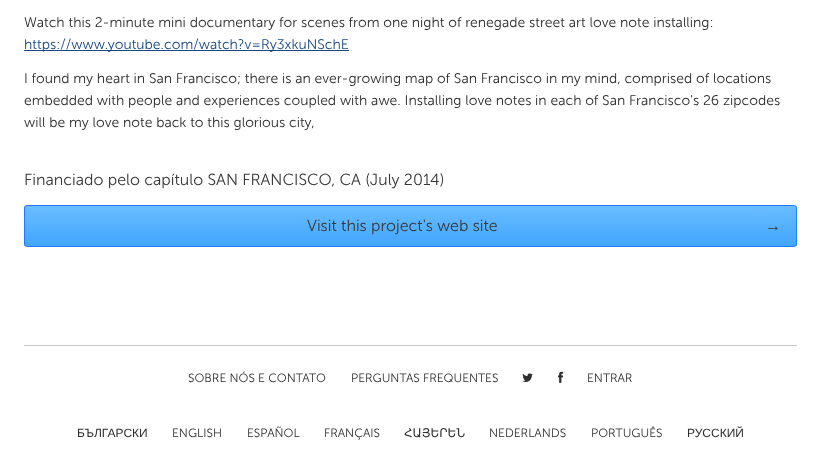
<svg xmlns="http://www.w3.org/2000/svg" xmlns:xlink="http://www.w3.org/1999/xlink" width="821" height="453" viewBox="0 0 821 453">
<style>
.cls-1{font:300 14px 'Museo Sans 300';fill:#2e2e2e}
.cls-2{font:300 14px 'Museo Sans 300';fill:#1a4882}
.cls-3{font:300 16px 'Museo Sans 300';fill:#373737}
.cls-4{font:16px Liberation Sans;fill:#373737}
.cls-5{font:300 12px 'Museo Sans 300';fill:#2e2e2e}
.cls-6{font:12px Liberation Sans;fill:#2e2e2e}
.cls-7{font:12px DejaVu Sans;fill:#2e2e2e}
</style>
<defs>
<clipPath id="clip1"><rect x="24" y="205" width="773" height="42" rx="3"/></clipPath>
<linearGradient id="g1" gradientUnits="userSpaceOnUse" x1="411" y1="206" x2="411" y2="246"><stop offset="0" stop-color="#6abdff"/><stop offset="1" stop-color="#41a5ff"/></linearGradient>
</defs>
<rect width="100%" height="100%" fill="#ffffff"/>
<rect fill="#1a4882" x="24" y="50" width="325" height="1"/>
<g clip-path="url(#clip1)">
<rect fill="url(#g1)" x="24" y="206" width="773" height="40"/>
</g>
<rect fill="none" stroke="#227aff" x="24.5" y="205.5" width="772" height="41" rx="2.5"/>
<rect fill="#c8c8c8" x="24" y="345" width="773" height="1"/>
<image xlink:href="image0.png" x="522" y="373" width="11" height="9"/>
<image xlink:href="image1.png" x="558" y="371" width="6" height="12"/>
<text class="cls-1" x="24" y="27">Watch this 2-minute mini documentary for scenes from one night of renegade street art love note installing:</text>
<text class="cls-2" x="24" y="49">https://www.youtube.com/watch?v=Ry3xkuNSchE</text>
<text class="cls-1"><tspan x="24" y="83">I found my heart in San Francisco; there is an ever-growing map of San Francisco in my mind, comprised of locations</tspan><tspan x="24" y="105">embedded with people and experiences coupled with awe. Installing love notes in each of San Francisco's 26 zipcodes</tspan><tspan x="24" y="127">will be my love note back to this glorious city,</tspan></text>
<text class="cls-3" x="24" y="185">Financiado pelo capítulo SAN FRANCISCO, CA (July 2014)</text>
<text class="cls-3" x="307" y="231">Visit this project's web site</text>
<text class="cls-4" x="765" y="231">→</text>
<text class="cls-5" x="188" y="382">SOBRE NÓS E CONTATO</text>
<text class="cls-5" x="351" y="382">PERGUNTAS FREQUENTES</text>
<text class="cls-5" x="587" y="382">ENTRAR</text>
<text class="cls-6" x="77" y="437">БЪЛГАРСКИ</text>
<text class="cls-5" x="172" y="437">ENGLISH</text>
<text class="cls-5" x="247" y="437">ESPAÑOL</text>
<text class="cls-5" x="324" y="437">FRANÇAIS</text>
<text class="cls-7" x="404" y="437">ՀԱՅԵՐԵՆ</text>
<text class="cls-5" x="489" y="437">NEDERLANDS</text>
<text class="cls-5" x="591" y="437">PORTUGUÊS</text>
<text class="cls-6" x="687" y="437">РУССКИЙ</text>
</svg>
